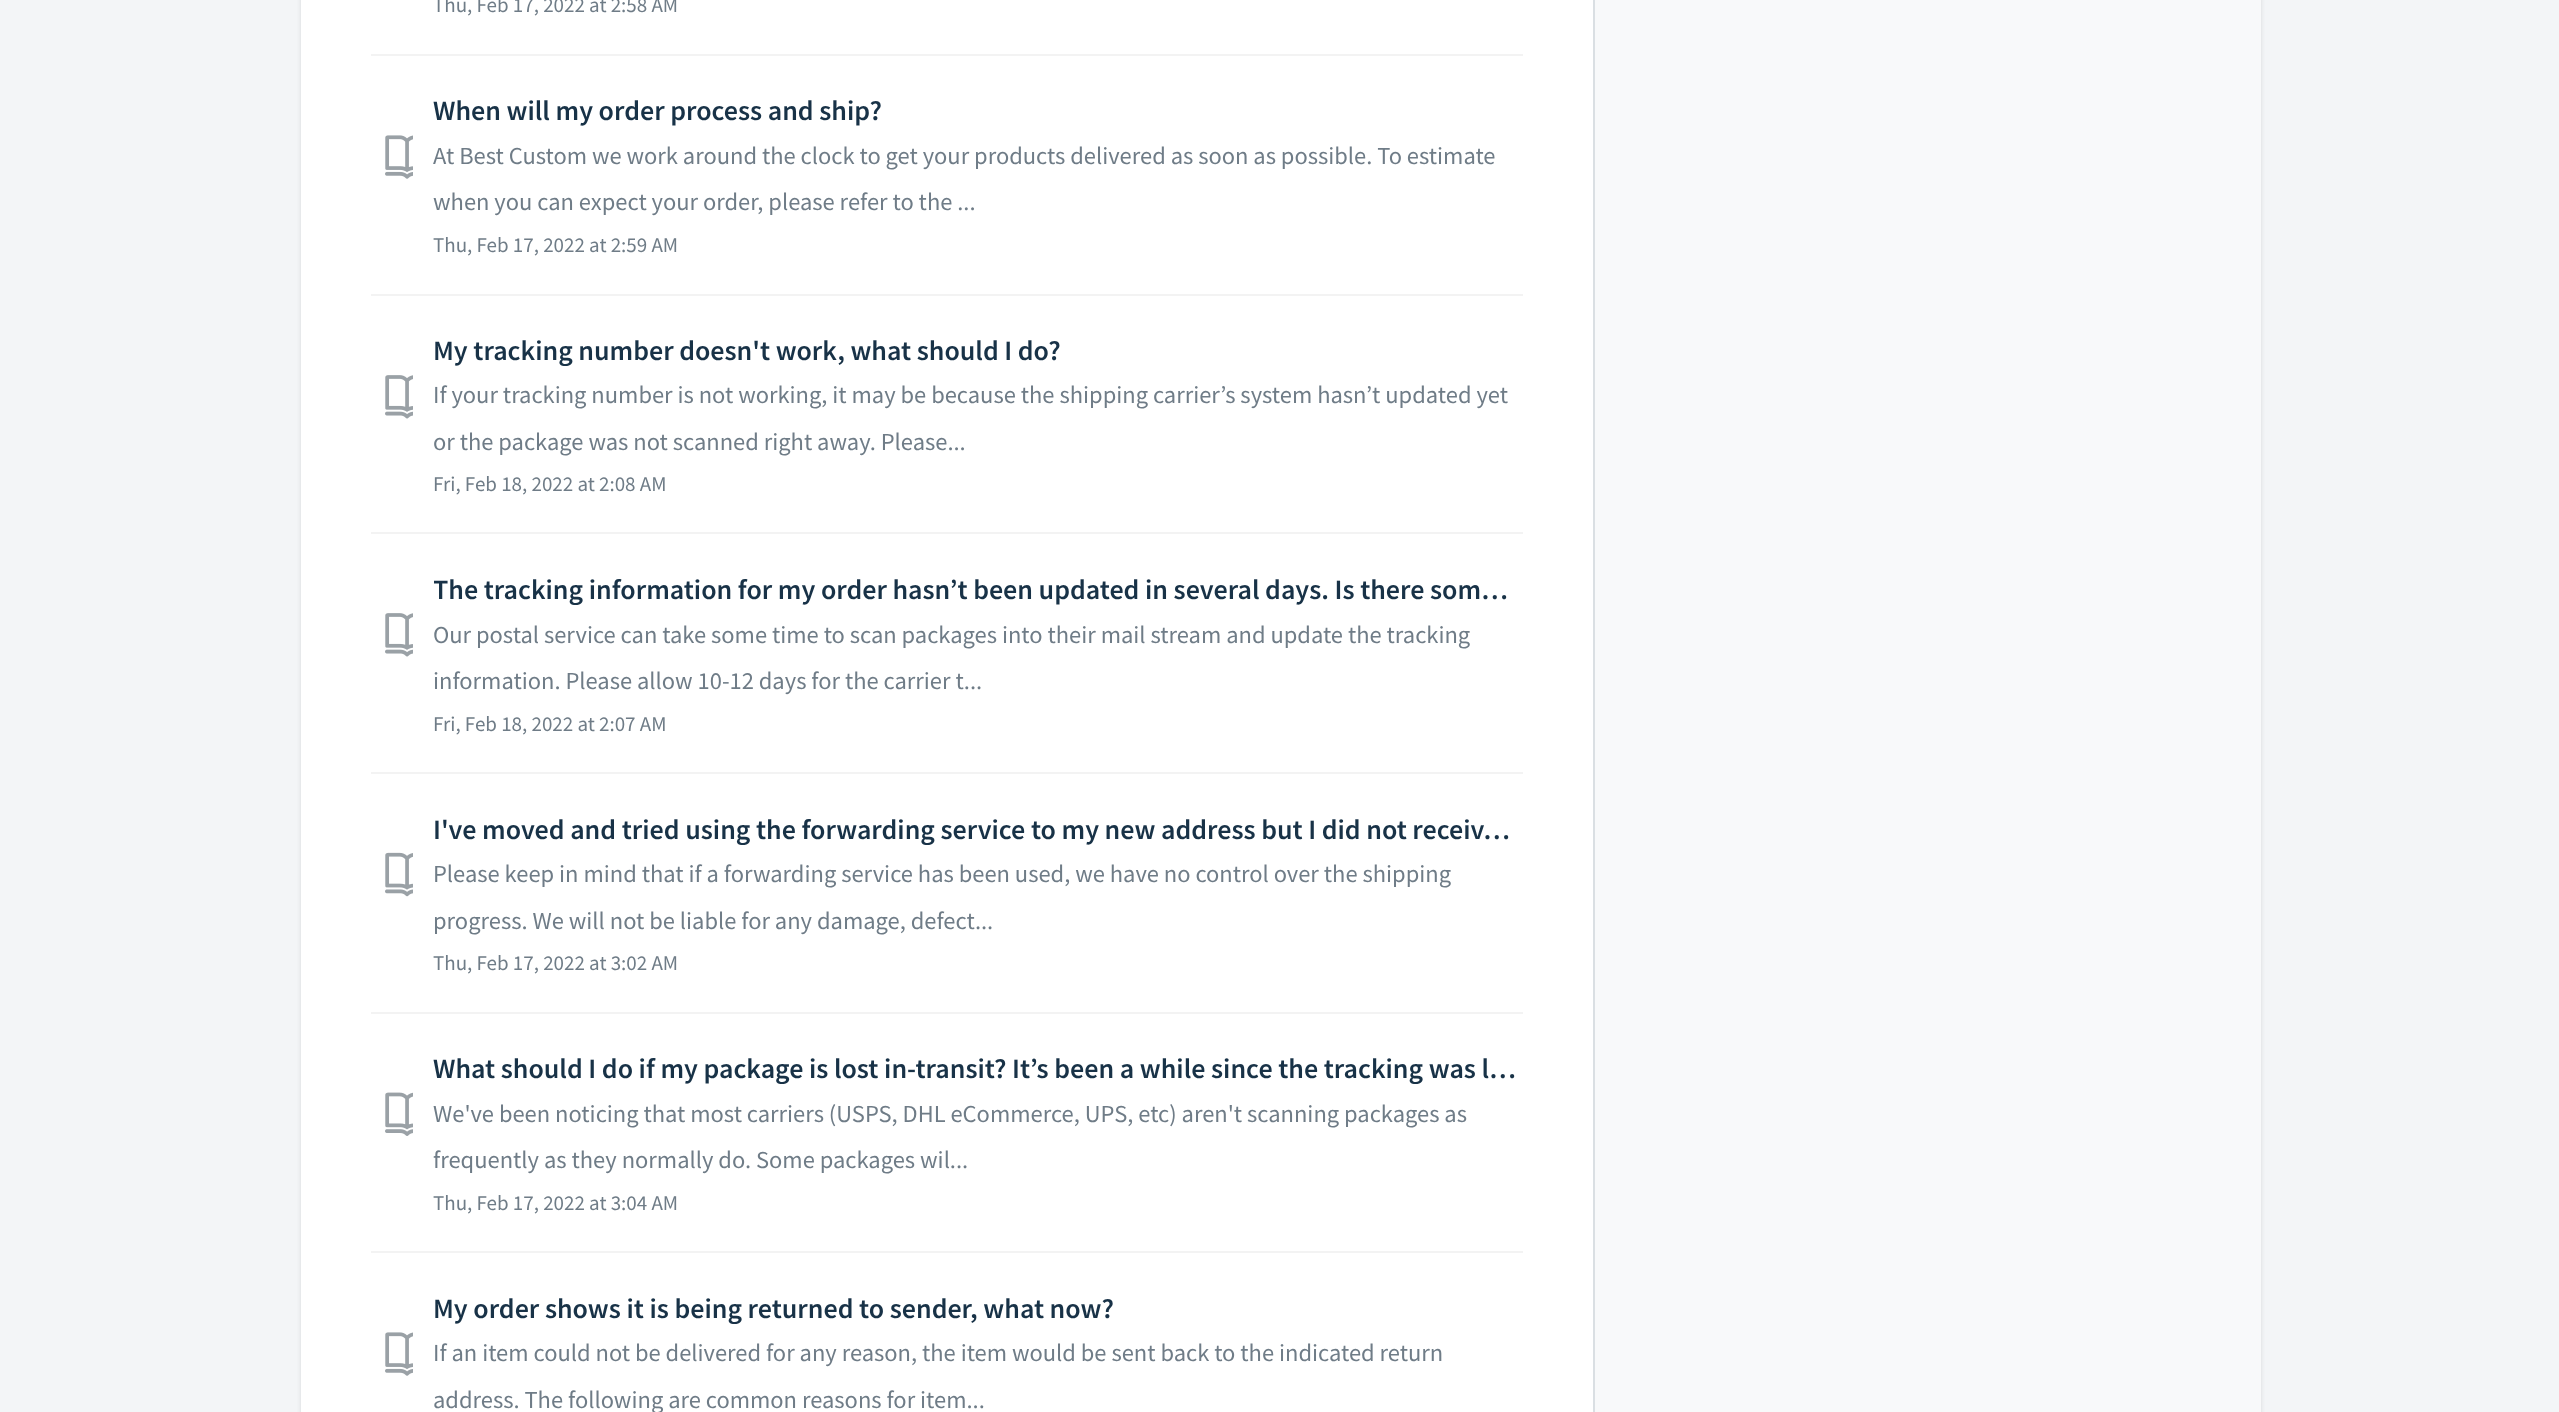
<svg xmlns="http://www.w3.org/2000/svg" xmlns:xlink="http://www.w3.org/1999/xlink" width="2559" height="1412" viewBox="0 0 2559 1412">
<style>
.cls-1{font:21px Source Sans Pro;fill:#6f7c87}
.cls-2{font:600 28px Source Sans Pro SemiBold;fill:#183247}
.cls-3{font:24.5px Source Sans Pro;fill:#6f7c87}
</style>
<defs>
<clipPath id="clip1"><rect x="434" y="572" width="1089" height="39"/></clipPath>
</defs>
<rect width="100%" height="100%" fill="#f3f5f7"/>
<rect fill="#3f3f44" fill-opacity="0.15" filter="blur(2px)" x="301" y="-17" width="1960" height="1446" rx="11"/>
<rect fill="#f8f9fa" x="1595" y="0" width="666" height="1412"/>
<rect fill="#ffffff" x="301" y="0" width="1292" height="1412"/>
<rect fill="#dadfe3" x="1593" y="0" width="2" height="1412"/>
<rect fill="#f3f3f3" x="371" y="54" width="1152" height="2"/>
<image xlink:href="image0.png" x="385" y="135" width="28" height="44"/>
<rect fill="#f3f3f3" x="371" y="294" width="1152" height="2"/>
<image xlink:href="image1.png" x="385" y="375" width="28" height="44"/>
<rect fill="#f3f3f3" x="371" y="532" width="1152" height="2"/>
<image xlink:href="image1.png" x="385" y="613" width="28" height="44"/>
<rect fill="#f3f3f3" x="371" y="772" width="1152" height="2"/>
<image xlink:href="image2.png" x="385" y="852" width="28" height="45"/>
<rect fill="#f3f3f3" x="371" y="1012" width="1152" height="2"/>
<image xlink:href="image3.png" x="385" y="1092" width="28" height="44"/>
<rect fill="#f3f3f3" x="371" y="1251" width="1152" height="2"/>
<image xlink:href="image0.png" x="385" y="1332" width="28" height="44"/>
<text class="cls-1" x="433" y="12">Thu, Feb 17, 2022 at 2:58 AM</text>
<text class="cls-2" x="433" y="120">When will my order process and ship?</text>
<text class="cls-3"><tspan x="433" y="164">At Best Custom we work around the clock to get your products delivered as soon as possible. To estimate</tspan><tspan x="433" y="210">when you can expect your order, please refer to the ...</tspan></text>
<text class="cls-1" x="433" y="252">Thu, Feb 17, 2022 at 2:59 AM</text>
<text class="cls-2" x="433" y="360">My tracking number doesn't work, what should I do?</text>
<text class="cls-3"><tspan x="433" y="403">If your tracking number is not working, it may be because the shipping carrier’s system hasn’t updated yet</tspan><tspan x="433" y="450">or the package was not scanned right away. Please...</tspan></text>
<text class="cls-1" x="433" y="491">Fri, Feb 18, 2022 at 2:08 AM</text>
<g clip-path="url(#clip1)">
<text class="cls-2" x="433" y="599">The tracking information for my order hasn’t been updated in several days. Is there som…</text>
</g>
<text class="cls-3"><tspan x="433" y="643">Our postal service can take some time to scan packages into their mail stream and update the tracking</tspan><tspan x="433" y="689">information. Please allow 10-12 days for the carrier t...</tspan></text>
<text class="cls-1" x="433" y="731">Fri, Feb 18, 2022 at 2:07 AM</text>
<text class="cls-2" x="433" y="839">I've moved and tried using the forwarding service to my new address but I did not receiv…</text>
<text class="cls-3"><tspan x="433" y="882">Please keep in mind that if a forwarding service has been used, we have no control over the shipping</tspan><tspan x="433" y="929">progress. We will not be liable for any damage, defect...</tspan></text>
<text class="cls-1" x="433" y="970">Thu, Feb 17, 2022 at 3:02 AM</text>
<text class="cls-2" x="433" y="1078">What should I do if my package is lost in-transit? It’s been a while since the tracking was l…</text>
<text class="cls-3"><tspan x="433" y="1122">We've been noticing that most carriers (USPS, DHL eCommerce, UPS, etc) aren't scanning packages as</tspan><tspan x="433" y="1168">frequently as they normally do. Some packages wil...</tspan></text>
<text class="cls-1" x="433" y="1210">Thu, Feb 17, 2022 at 3:04 AM</text>
<text class="cls-2" x="433" y="1318">My order shows it is being returned to sender, what now?</text>
<text class="cls-3"><tspan x="433" y="1361">If an item could not be delivered for any reason, the item would be sent back to the indicated return</tspan><tspan x="433" y="1408">address. The following are common reasons for item...</tspan></text>
</svg>
